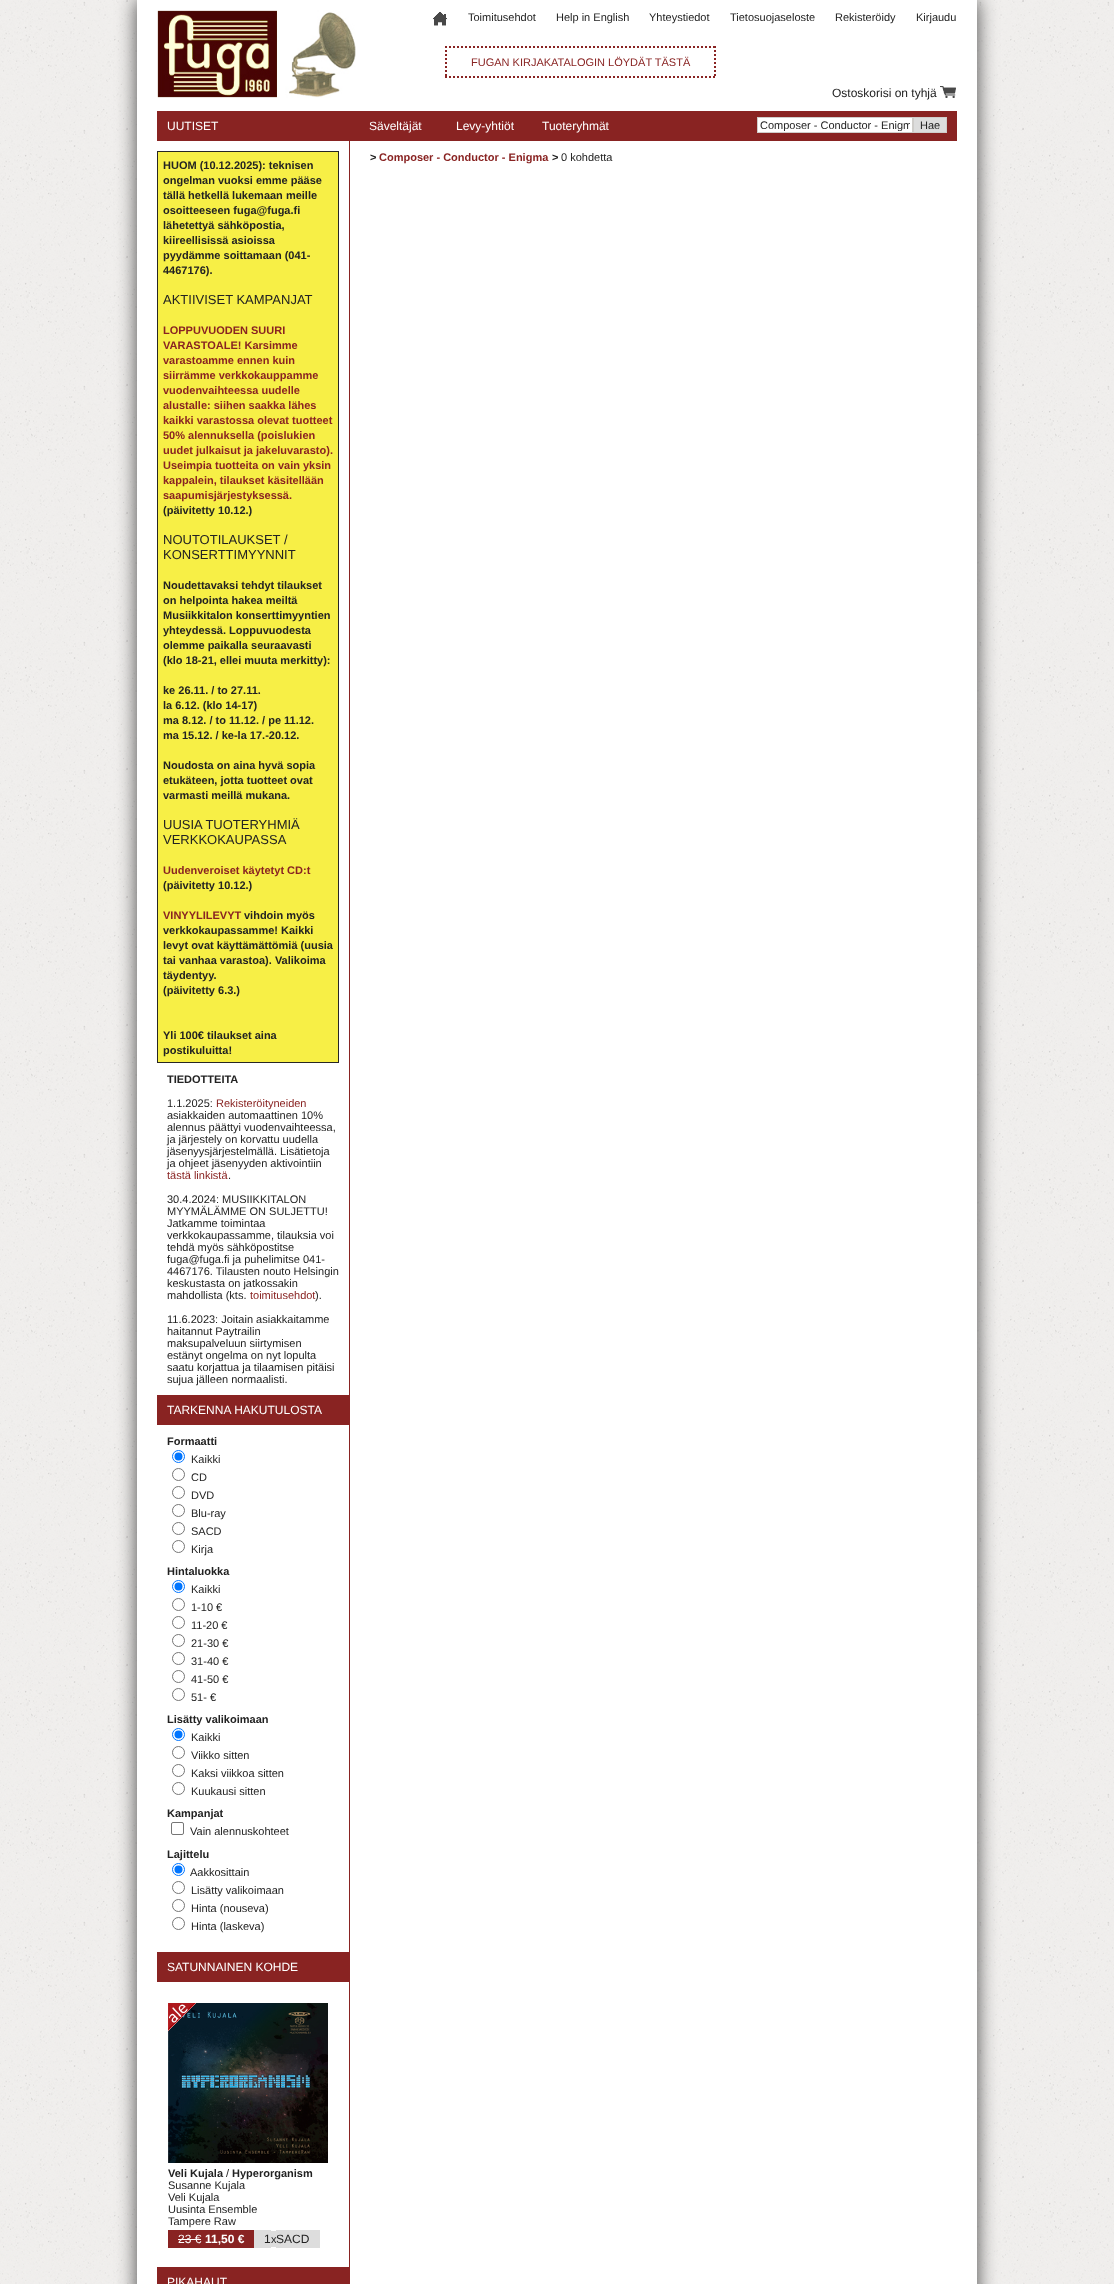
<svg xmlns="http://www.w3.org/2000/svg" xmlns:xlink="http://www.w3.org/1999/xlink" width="1114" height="2284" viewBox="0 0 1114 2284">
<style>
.cls-1{font:11px Liberation Sans;fill:#222222}
.cls-2{font:11px Liberation Sans;fill:#892322}
.cls-3{font:12px Liberation Sans;fill:#222222}
.cls-4{font:12px Liberation Sans;fill:#ffffff}
.cls-5{font:bold 11px Liberation Sans;fill:#222222}
.cls-6{font:13px Liberation Sans;fill:#222222}
.cls-7{font:bold 11px Liberation Sans;fill:#892322}
.cls-8{font:bold 12px Liberation Sans;fill:#ffffff}
</style>
<defs>
<clipPath id="clip1"><rect x="760" y="119" width="150" height="12"/></clipPath>
</defs>
<rect width="100%" height="100%" fill="#ffffff"/>
<image xlink:href="image0.png" x="0" y="0" width="1114" height="2284"/>
<rect fill="#444444" filter="blur(10px)" x="137" y="0" width="840" height="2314"/>
<rect fill="#ffffff" x="137" y="0" width="840" height="2284"/>
<image xlink:href="image1.png" x="157" y="10" width="199" height="88"/>
<image xlink:href="image2.png" x="432" y="12" width="16" height="14"/>
<path fill="none" stroke="#892322" stroke-width="2" stroke-dasharray="2 2" d="M445 47H716"/>
<path fill="none" stroke="#892322" stroke-width="2" stroke-dasharray="2 2" d="M715 46V78"/>
<path fill="none" stroke="#892322" stroke-width="2" stroke-dasharray="2 2" d="M445 77H716"/>
<path fill="none" stroke="#892322" stroke-width="2" stroke-dasharray="2 2" d="M446 46V78"/>
<image xlink:href="image3.png" x="940" y="86" width="16" height="12"/>
<rect fill="#892322" x="349" y="111" width="1" height="2173"/>
<rect fill="#892322" x="157" y="111" width="192" height="30"/>
<rect fill="#f7ef46" stroke="#272624" x="157.5" y="151.5" width="181" height="911"/>
<rect fill="#892322" x="157" y="1395" width="192" height="30"/>
<circle fill="none" stroke="#0075ff" cx="178.5" cy="1456.5" r="6"/>
<circle fill="#0075ff" cx="178.5" cy="1456.5" r="4"/>
<circle fill="none" stroke="#767676" cx="178.5" cy="1474.5" r="6"/>
<circle fill="none" stroke="#767676" cx="178.5" cy="1492.5" r="6"/>
<circle fill="none" stroke="#767676" cx="178.5" cy="1510.5" r="6"/>
<circle fill="none" stroke="#767676" cx="178.5" cy="1528.5" r="6"/>
<circle fill="none" stroke="#767676" cx="178.5" cy="1546.5" r="6"/>
<circle fill="none" stroke="#0075ff" cx="178.5" cy="1586.5" r="6"/>
<circle fill="#0075ff" cx="178.5" cy="1586.5" r="4"/>
<circle fill="none" stroke="#767676" cx="178.5" cy="1604.5" r="6"/>
<circle fill="none" stroke="#767676" cx="178.5" cy="1622.5" r="6"/>
<circle fill="none" stroke="#767676" cx="178.5" cy="1640.5" r="6"/>
<circle fill="none" stroke="#767676" cx="178.5" cy="1658.5" r="6"/>
<circle fill="none" stroke="#767676" cx="178.5" cy="1676.5" r="6"/>
<circle fill="none" stroke="#767676" cx="178.5" cy="1694.5" r="6"/>
<circle fill="none" stroke="#0075ff" cx="178.5" cy="1734.5" r="6"/>
<circle fill="#0075ff" cx="178.5" cy="1734.5" r="4"/>
<circle fill="none" stroke="#767676" cx="178.5" cy="1752.5" r="6"/>
<circle fill="none" stroke="#767676" cx="178.5" cy="1770.5" r="6"/>
<circle fill="none" stroke="#767676" cx="178.5" cy="1788.5" r="6"/>
<rect fill="none" stroke="#767676" x="171.5" y="1822.5" width="12" height="12" rx="1.5"/>
<circle fill="none" stroke="#0075ff" cx="178.5" cy="1869.5" r="6"/>
<circle fill="#0075ff" cx="178.5" cy="1869.5" r="4"/>
<circle fill="none" stroke="#767676" cx="178.5" cy="1887.5" r="6"/>
<circle fill="none" stroke="#767676" cx="178.5" cy="1905.5" r="6"/>
<circle fill="none" stroke="#767676" cx="178.5" cy="1923.5" r="6"/>
<rect fill="#892322" x="157" y="1952" width="192" height="30"/>
<image xlink:href="image4.png" x="168" y="2003" width="160" height="160"/>
<image xlink:href="image5.png" x="168" y="2003" width="28" height="28"/>
<rect fill="#892322" x="168" y="2230" width="86" height="18"/>
<rect fill="#ffffff" x="178" y="2239" width="23" height="1"/>
<rect fill="#dddddd" x="254" y="2230" width="17" height="18"/>
<rect fill="#dddddd" x="271" y="2231" width="5" height="16"/>
<rect fill="#dddddd" x="276" y="2230" width="44" height="18"/>
<rect fill="#892322" x="157" y="2267" width="192" height="17"/>
<rect fill="#892322" x="350" y="111" width="607" height="30"/>
<rect fill="#ffffff" stroke="#cfcdca" x="757.5" y="117.5" width="155" height="15"/>
<rect fill="#dddddd" stroke="#cfcdca" x="913.5" y="117.5" width="33" height="15"/>
<text class="cls-1" x="468" y="21">Toimitusehdot</text>
<text class="cls-1" x="556" y="21">Help in English</text>
<text class="cls-1" x="649" y="21">Yhteystiedot</text>
<text class="cls-1" x="730" y="21">Tietosuojaseloste</text>
<text class="cls-1" x="835" y="21">Rekisteröidy</text>
<text class="cls-1" x="916" y="21">Kirjaudu</text>
<text class="cls-2" x="471" y="66">FUGAN KIRJAKATALOGIN LÖYDÄT TÄSTÄ</text>
<text class="cls-3" x="832" y="97">Ostoskorisi on tyhjä</text>
<text class="cls-4" x="167" y="130">UUTISET</text>
<text class="cls-5"><tspan x="163" y="169">HUOM (10.12.2025): teknisen</tspan><tspan x="163" y="184">ongelman vuoksi emme pääse</tspan><tspan x="163" y="199">tällä hetkellä lukemaan meille</tspan><tspan x="163" y="214">osoitteeseen fuga@fuga.fi</tspan><tspan x="163" y="229">lähetettyä sähköpostia,</tspan><tspan x="163" y="244">kiireellisissä asioissa</tspan><tspan x="163" y="259">pyydämme soittamaan (041-</tspan><tspan x="163" y="274">4467176).</tspan></text>
<text class="cls-6" x="163" y="304">AKTIIVISET KAMPANJAT</text>
<text class="cls-7"><tspan x="163" y="334">LOPPUVUODEN SUURI</tspan><tspan x="163" y="349">VARASTOALE! Karsimme</tspan><tspan x="163" y="364">varastoamme ennen kuin</tspan><tspan x="163" y="379">siirrämme verkkokauppamme</tspan><tspan x="163" y="394">vuodenvaihteessa uudelle</tspan><tspan x="163" y="409">alustalle: siihen saakka lähes</tspan><tspan x="163" y="424">kaikki varastossa olevat tuotteet</tspan><tspan x="163" y="439">50% alennuksella (poislukien</tspan><tspan x="163" y="454">uudet julkaisut ja jakeluvarasto).</tspan><tspan x="163" y="469">Useimpia tuotteita on vain yksin</tspan><tspan x="163" y="484">kappalein, tilaukset käsitellään</tspan><tspan x="163" y="499">saapumisjärjestyksessä.</tspan></text>
<text class="cls-5" x="163" y="514">(päivitetty 10.12.)</text>
<text class="cls-6"><tspan x="163" y="544">NOUTOTILAUKSET /</tspan><tspan x="163" y="559">KONSERTTIMYYNNIT</tspan></text>
<text class="cls-5"><tspan x="163" y="589">Noudettavaksi tehdyt tilaukset</tspan><tspan x="163" y="604">on helpointa hakea meiltä</tspan><tspan x="163" y="619">Musiikkitalon konserttimyyntien</tspan><tspan x="163" y="634">yhteydessä. Loppuvuodesta</tspan><tspan x="163" y="649">olemme paikalla seuraavasti</tspan><tspan x="163" y="664">(klo 18-21, ellei muuta merkitty):</tspan></text>
<text class="cls-5"><tspan x="163" y="694">ke 26.11. / to 27.11.</tspan><tspan x="163" y="709">la 6.12. (klo 14-17)</tspan><tspan x="163" y="724">ma 8.12. / to 11.12. / pe 11.12.</tspan><tspan x="163" y="739">ma 15.12. / ke-la 17.-20.12.</tspan></text>
<text class="cls-5"><tspan x="163" y="769">Noudosta on aina hyvä sopia</tspan><tspan x="163" y="784">etukäteen, jotta tuotteet ovat</tspan><tspan x="163" y="799">varmasti meillä mukana.</tspan></text>
<text class="cls-6"><tspan x="163" y="829">UUSIA TUOTERYHMIÄ</tspan><tspan x="163" y="844">VERKKOKAUPASSA</tspan></text>
<text class="cls-7" x="163" y="874">Uudenveroiset käytetyt CD:t</text>
<text class="cls-5" x="163" y="889">(päivitetty 10.12.)</text>
<text class="cls-7" x="163" y="919">VINYYLILEVYT</text>
<text class="cls-5" x="244" y="919">vihdoin myös</text>
<text class="cls-5"><tspan x="163" y="934">verkkokaupassamme! Kaikki</tspan><tspan x="163" y="949">levyt ovat käyttämättömiä (uusia</tspan><tspan x="163" y="964">tai vanhaa varastoa). Valikoima</tspan><tspan x="163" y="979">täydentyy.</tspan><tspan x="163" y="994">(päivitetty 6.3.)</tspan></text>
<text class="cls-5"><tspan x="163" y="1039">Yli 100€ tilaukset aina</tspan><tspan x="163" y="1054">postikuluitta!</tspan></text>
<text class="cls-5" x="167" y="1083">TIEDOTTEITA</text>
<text class="cls-1" x="167" y="1107">1.1.2025:</text>
<text class="cls-2" x="216" y="1107">Rekisteröityneiden</text>
<text class="cls-1"><tspan x="167" y="1119">asiakkaiden automaattinen 10%</tspan><tspan x="167" y="1131">alennus päättyi vuodenvaihteessa,</tspan><tspan x="167" y="1143">ja järjestely on korvattu uudella</tspan><tspan x="167" y="1155">jäsenyysjärjestelmällä. Lisätietoja</tspan><tspan x="167" y="1167">ja ohjeet jäsenyyden aktivointiin</tspan></text>
<text class="cls-2" x="167" y="1179">tästä linkistä</text>
<text class="cls-1" x="228" y="1179">.</text>
<text class="cls-1"><tspan x="167" y="1203">30.4.2024: MUSIIKKITALON</tspan><tspan x="167" y="1215">MYYMÄLÄMME ON SULJETTU!</tspan><tspan x="167" y="1227">Jatkamme toimintaa</tspan><tspan x="167" y="1239">verkkokaupassamme, tilauksia voi</tspan><tspan x="167" y="1251">tehdä myös sähköpostitse</tspan><tspan x="167" y="1263">fuga@fuga.fi ja puhelimitse 041-</tspan><tspan x="167" y="1275">4467176. Tilausten nouto Helsingin</tspan><tspan x="167" y="1287">keskustasta on jatkossakin</tspan><tspan x="167" y="1299">mahdollista (kts.</tspan></text>
<text class="cls-2" x="250" y="1299">toimitusehdot</text>
<text class="cls-1" x="315" y="1299">).</text>
<text class="cls-1"><tspan x="167" y="1323">11.6.2023: Joitain asiakkaitamme</tspan><tspan x="167" y="1335">haitannut Paytrailin</tspan><tspan x="167" y="1347">maksupalveluun siirtymisen</tspan><tspan x="167" y="1359">estänyt ongelma on nyt lopulta</tspan><tspan x="167" y="1371">saatu korjattua ja tilaamisen pitäisi</tspan><tspan x="167" y="1383">sujua jälleen normaalisti.</tspan></text>
<text class="cls-4" x="167" y="1414">TARKENNA HAKUTULOSTA</text>
<text class="cls-5" x="167" y="1445">Formaatti</text>
<text class="cls-1"><tspan x="191" y="1463">Kaikki</tspan><tspan x="191" y="1481">CD</tspan><tspan x="191" y="1499">DVD</tspan><tspan x="191" y="1517">Blu-ray</tspan><tspan x="191" y="1535">SACD</tspan><tspan x="191" y="1553">Kirja</tspan></text>
<text class="cls-5" x="167" y="1575">Hintaluokka</text>
<text class="cls-1"><tspan x="191" y="1593">Kaikki</tspan><tspan x="191" y="1611">1-10 €</tspan><tspan x="191" y="1629">11-20 €</tspan><tspan x="191" y="1647">21-30 €</tspan><tspan x="191" y="1665">31-40 €</tspan><tspan x="191" y="1683">41-50 €</tspan><tspan x="191" y="1701">51- €</tspan></text>
<text class="cls-5" x="167" y="1723">Lisätty valikoimaan</text>
<text class="cls-1"><tspan x="191" y="1741">Kaikki</tspan><tspan x="191" y="1759">Viikko sitten</tspan><tspan x="191" y="1777">Kaksi viikkoa sitten</tspan><tspan x="191" y="1795">Kuukausi sitten</tspan></text>
<text class="cls-5" x="167" y="1817">Kampanjat</text>
<text class="cls-1" x="190" y="1835">Vain alennuskohteet</text>
<text class="cls-5" x="167" y="1858">Lajittelu</text>
<text class="cls-1" x="190" y="1876">Aakkosittain</text>
<text class="cls-1"><tspan x="191" y="1894">Lisätty valikoimaan</tspan><tspan x="191" y="1912">Hinta (nouseva)</tspan><tspan x="191" y="1930">Hinta (laskeva)</tspan></text>
<text class="cls-4" x="167" y="1971">SATUNNAINEN KOHDE</text>
<text class="cls-5" x="168" y="2177">Veli Kujala</text>
<text class="cls-1" x="226" y="2177">/</text>
<text class="cls-5" x="232" y="2177">Hyperorganism</text>
<text class="cls-1"><tspan x="168" y="2189">Susanne Kujala</tspan><tspan x="168" y="2201">Veli Kujala</tspan><tspan x="168" y="2213">Uusinta Ensemble</tspan><tspan x="168" y="2225">Tampere Raw</tspan></text>
<text class="cls-4" x="178" y="2243">23 €</text>
<text class="cls-8" x="205" y="2243">11,50 €</text>
<text class="cls-3" x="264" y="2243">1</text>
<text class="cls-1" x="271" y="2243">x</text>
<text class="cls-3" x="276" y="2243">SACD</text>
<text class="cls-4" x="167" y="2286">PIKAHAUT</text>
<text class="cls-4" x="369" y="130">Säveltäjät</text>
<text class="cls-4" x="456" y="130">Levy-yhtiöt</text>
<text class="cls-4" x="542" y="130">Tuoteryhmät</text>
<g clip-path="url(#clip1)">
<text class="cls-1" x="760" y="129">Composer - Conductor - Enigm</text>
</g>
<text class="cls-1" x="920" y="129">Hae</text>
<text class="cls-5" x="370" y="161">&gt;</text>
<text class="cls-7" x="379" y="161">Composer - Conductor - Enigma</text>
<text class="cls-5" x="552" y="161">&gt;</text>
<text class="cls-1" x="561" y="161">0 kohdetta</text>
</svg>
